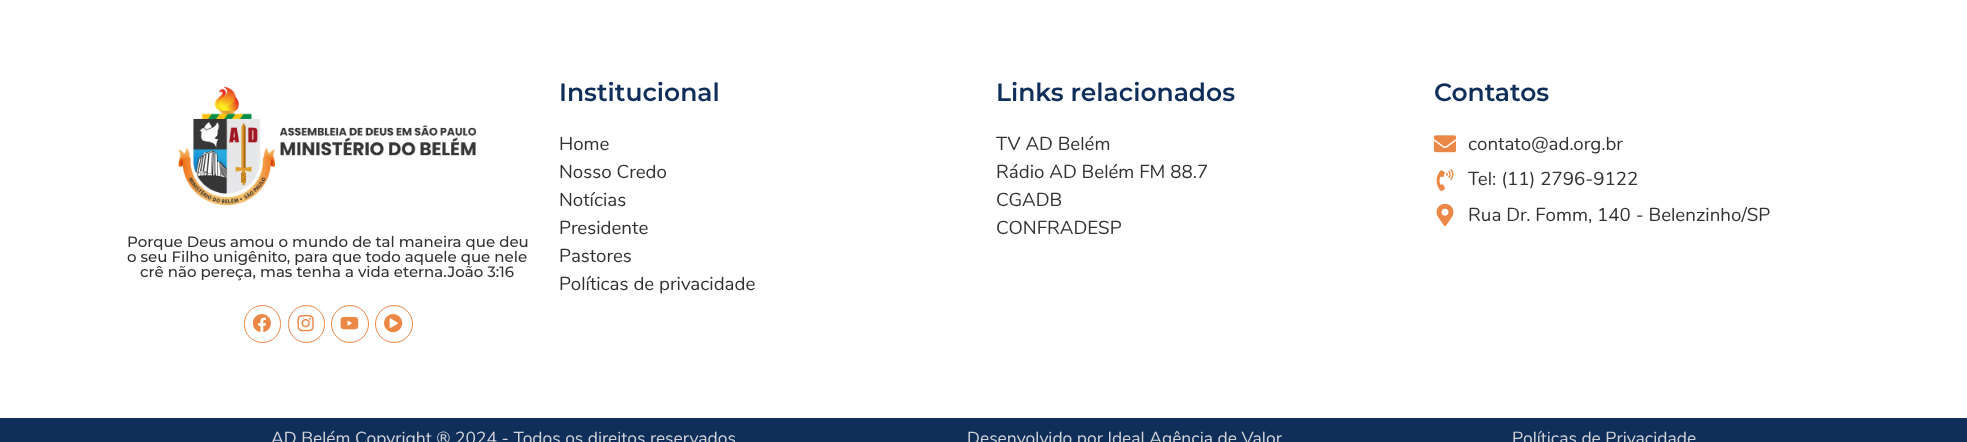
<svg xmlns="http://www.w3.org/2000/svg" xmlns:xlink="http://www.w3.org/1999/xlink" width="1967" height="442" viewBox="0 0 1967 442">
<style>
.cls-1{font:600 25px Montserrat;fill:#0f2e5a}
.cls-2{font:18.75px Nunito;fill:#343132}
.cls-3{font:500 15px Montserrat;fill:#343132}
.cls-4{font:17.5px Nunito;fill:#d3d4d6}
</style>
<rect width="100%" height="100%" fill="#ffffff"/>
<image xlink:href="image0.png" x="1434" y="135" width="22" height="18"/>
<image xlink:href="image1.png" x="1436" y="169" width="18" height="22"/>
<image xlink:href="image2.png" x="1436" y="204" width="18" height="22"/>
<image xlink:href="image3.png" x="178" y="86" width="299" height="120"/>
<rect fill="none" stroke="#eb8747" x="244.5" y="305.5" width="36" height="37" rx="18"/>
<image xlink:href="image4.png" x="253" y="314" width="18" height="18"/>
<rect fill="none" stroke="#eb8747" x="288.5" y="305.5" width="36" height="37" rx="18"/>
<image xlink:href="image5.png" x="297" y="315" width="17" height="17"/>
<circle fill="none" stroke="#eb8747" cx="350" cy="324" r="18.5"/>
<image xlink:href="image6.png" x="340" y="316" width="19" height="14"/>
<circle fill="none" stroke="#eb8747" cx="394" cy="324" r="18.5"/>
<image xlink:href="image7.png" x="384" y="314" width="19" height="19"/>
<rect fill="#0f2e5a" x="0" y="418" width="1967" height="24"/>
<text class="cls-1" x="559" y="101">Institucional</text>
<text class="cls-2"><tspan x="559" y="150">Home</tspan><tspan x="559" y="178">Nosso Credo</tspan><tspan x="559" y="206">Notícias</tspan><tspan x="559" y="234">Presidente</tspan><tspan x="559" y="262">Pastores</tspan><tspan x="559" y="290">Políticas de privacidade</tspan></text>
<text class="cls-1" x="996" y="101">Links relacionados</text>
<text class="cls-2"><tspan x="996" y="150">TV AD Belém</tspan><tspan x="996" y="178">Rádio AD Belém FM 88.7</tspan><tspan x="996" y="206">CGADB</tspan><tspan x="996" y="234">CONFRADESP</tspan></text>
<text class="cls-1" x="1434" y="101">Contatos</text>
<text class="cls-2"><tspan x="1468" y="150">contato@ad.org.br</tspan><tspan x="1468" y="185">Tel: (11) 2796-9122</tspan><tspan x="1468" y="221">Rua Dr. Fomm, 140 - Belenzinho/SP</tspan></text>
<text class="cls-3"><tspan x="127" y="247">Porque Deus amou o mundo de tal maneira que deu</tspan><tspan x="127" y="262">o seu Filho unigênito, para que todo aquele que nele</tspan></text>
<text class="cls-3" x="140" y="277">crê não pereça, mas tenha a vida eterna.João 3:16</text>
<text class="cls-4" x="271" y="444">AD Belém Copyright ® 2024 - Todos os direitos reservados</text>
<text class="cls-4" x="967" y="444">Desenvolvido por Ideal Agência de Valor</text>
<text class="cls-4" x="1512" y="444">Políticas de Privacidade</text>
</svg>
